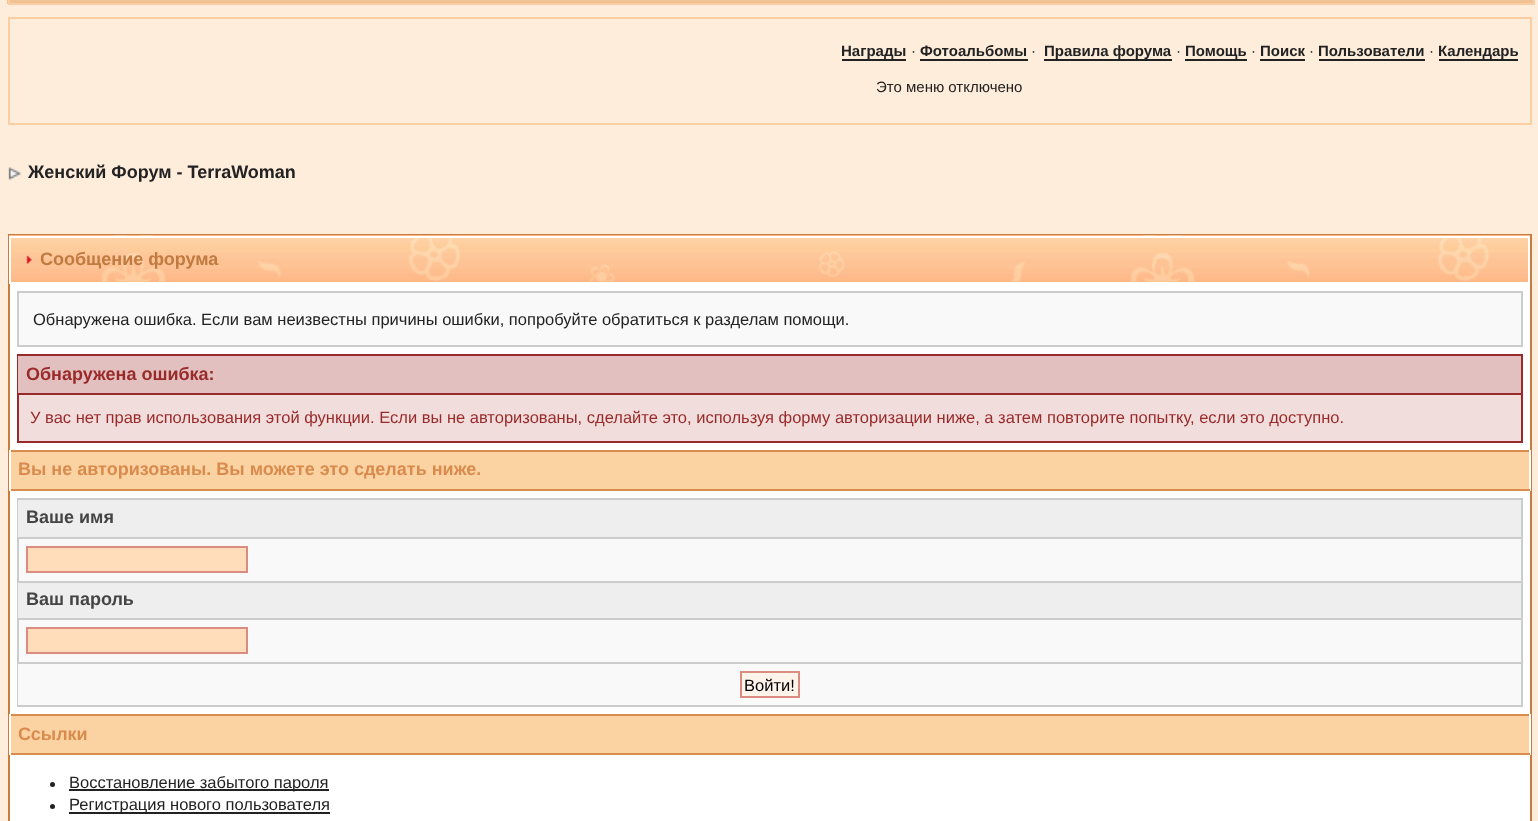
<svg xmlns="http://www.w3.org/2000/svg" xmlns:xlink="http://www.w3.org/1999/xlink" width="1538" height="821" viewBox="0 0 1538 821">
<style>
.cls-1{font:bold 15px Liberation Sans;fill:#222222}
.cls-2{font:15px Liberation Sans;fill:#222222}
.cls-3{font:bold 18px Liberation Sans;fill:#222222}
.cls-4{font:bold 18px Liberation Sans;fill:#c17a40}
.cls-5{font:16.5px Liberation Sans;fill:#222222}
.cls-6{font:bold 18px Liberation Sans;fill:#992a2a}
.cls-7{font:16.5px Liberation Sans;fill:#992a2a}
.cls-8{font:bold 18px Liberation Sans;fill:#d98b4d}
.cls-9{font:bold 18px Liberation Sans;fill:#444444}
.cls-10{font:16.5px Liberation Sans;fill:#000000}
</style>
<rect width="100%" height="100%" fill="#feeddb"/>
<rect fill="#f0c193" x="7" y="0" width="1528" height="4"/>
<rect fill="none" stroke="#facea2" stroke-width="2" x="9" y="-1" width="1525" height="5"/>
<rect fill="none" stroke="#facea1" stroke-width="2" x="9" y="18" width="1522" height="106"/>
<rect fill="#222222" x="842" y="59" width="64" height="2"/>
<rect fill="#222222" x="920" y="59" width="108" height="2"/>
<rect fill="#222222" x="1044" y="59" width="128" height="2"/>
<rect fill="#222222" x="1185" y="59" width="62" height="2"/>
<rect fill="#222222" x="1260" y="59" width="45" height="2"/>
<rect fill="#222222" x="1319" y="59" width="106" height="2"/>
<rect fill="#222222" x="1439" y="59" width="79" height="2"/>
<image xlink:href="image0.png" x="8" y="167" width="14" height="13"/>
<rect fill="#ffffff" x="10" y="284" width="1520" height="537"/>
<rect fill="none" stroke="#c67b3f" stroke-width="2" x="9" y="235" width="1522" height="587"/>
<image xlink:href="image1.png" x="9" y="235" width="1521" height="47"/>
<rect fill="none" stroke="#ffffff" stroke-width="2" x="10" y="237" width="1519" height="46"/>
<image xlink:href="image2.png" x="26" y="255" width="6" height="9"/>
<rect fill="#f9f9f9" stroke="#cccccc" stroke-width="2" x="18" y="292" width="1504" height="54"/>
<rect fill="#f2dddd" x="19" y="395" width="1502" height="46"/>
<rect fill="#992a2a" x="1521" y="354" width="2" height="89"/>
<rect fill="#992a2a" x="17" y="441" width="1506" height="2"/>
<rect fill="#992a2a" x="17" y="354" width="2" height="89"/>
<rect fill="#e3c0c0" x="18" y="356" width="1503" height="37"/>
<rect fill="#992a2a" x="18" y="354" width="1503" height="2"/>
<rect fill="#992a2a" x="18" y="393" width="1503" height="2"/>
<rect fill="#fbd3a3" x="11" y="452" width="1518" height="37"/>
<rect fill="#d98b4d" x="9" y="450" width="1521" height="2"/>
<rect fill="#ffffff" x="1529" y="450" width="2" height="41"/>
<rect fill="#d98b4d" x="9" y="489" width="1521" height="2"/>
<rect fill="#ffffff" x="9" y="450" width="2" height="41"/>
<rect fill="#f9f9f9" x="19" y="539" width="1502" height="123"/>
<rect fill="#cccccc" x="1521" y="498" width="2" height="209"/>
<rect fill="#cccccc" x="17" y="705" width="1506" height="2"/>
<rect fill="#cccccc" x="17" y="498" width="2" height="209"/>
<rect fill="#eeeeee" x="18" y="500" width="1503" height="37"/>
<rect fill="#cccccc" x="18" y="498" width="1503" height="2"/>
<rect fill="#cccccc" x="18" y="537" width="1503" height="2"/>
<rect fill="#ffddbb" stroke="#db8b80" stroke-width="2" x="27" y="547" width="220" height="25"/>
<rect fill="#eeeeee" x="18" y="583" width="1503" height="35"/>
<rect fill="#cccccc" x="18" y="581" width="1503" height="2"/>
<rect fill="#cccccc" x="18" y="618" width="1503" height="2"/>
<rect fill="#ffddbb" stroke="#db8b80" stroke-width="2" x="27" y="628" width="220" height="25"/>
<rect fill="#f9f9f9" x="18" y="664" width="1503" height="41"/>
<rect fill="#cccccc" x="18" y="662" width="1503" height="2"/>
<rect fill="#fef4e9" stroke="#db8b80" stroke-width="2" x="741" y="672" width="58" height="25"/>
<rect fill="#fbd3a3" x="11" y="716" width="1518" height="37"/>
<rect fill="#d98b4d" x="9" y="714" width="1521" height="2"/>
<rect fill="#ffffff" x="1529" y="714" width="2" height="41"/>
<rect fill="#d98b4d" x="9" y="753" width="1521" height="2"/>
<rect fill="#ffffff" x="9" y="714" width="2" height="41"/>
<circle fill="#222222" cx="52.5" cy="784.5" r="2.5"/>
<rect fill="#222222" x="69" y="789" width="260" height="2"/>
<circle fill="#222222" cx="52.5" cy="806.5" r="2.5"/>
<rect fill="#222222" x="69" y="812" width="261" height="2"/>
<text class="cls-1" x="841" y="56">Награды</text>
<text class="cls-2" x="911" y="56">·</text>
<text class="cls-1" x="920" y="56">Фотоальбомы</text>
<text class="cls-2" x="1031" y="56">·</text>
<text class="cls-1" x="1044" y="56">Правила форума</text>
<text class="cls-2" x="1176" y="56">·</text>
<text class="cls-1" x="1185" y="56">Помощь</text>
<text class="cls-2" x="1251" y="56">·</text>
<text class="cls-1" x="1260" y="56">Поиск</text>
<text class="cls-2" x="1309" y="56">·</text>
<text class="cls-1" x="1318" y="56">Пользователи</text>
<text class="cls-2" x="1429" y="56">·</text>
<text class="cls-1" x="1438" y="56">Календарь</text>
<text class="cls-2" x="876" y="92">Это меню отключено</text>
<text class="cls-3" x="28" y="178">Женский Форум - TerraWoman</text>
<text class="cls-4" x="40" y="265">Сообщение форума</text>
<text class="cls-5" x="33" y="325">Обнаружена ошибка. Если вам неизвестны причины ошибки, попробуйте обратиться к разделам помощи.</text>
<text class="cls-6" x="26" y="380">Обнаружена ошибка:</text>
<text class="cls-7" x="30" y="423">У вас нет прав использования этой функции. Если вы не авторизованы, сделайте это, используя форму авторизации ниже, а затем повторите попытку, если это доступно.</text>
<text class="cls-8" x="18" y="475">Вы не авторизованы. Вы можете это сделать ниже.</text>
<text class="cls-9" x="26" y="523">Ваше имя</text>
<text class="cls-9" x="26" y="605">Ваш пароль</text>
<text class="cls-10" x="744" y="691">Войти!</text>
<text class="cls-8" x="18" y="740">Ссылки</text>
<text class="cls-5"><tspan x="69" y="788">Восстановление забытого пароля</tspan><tspan x="69" y="810">Регистрация нового пользователя</tspan></text>
</svg>
